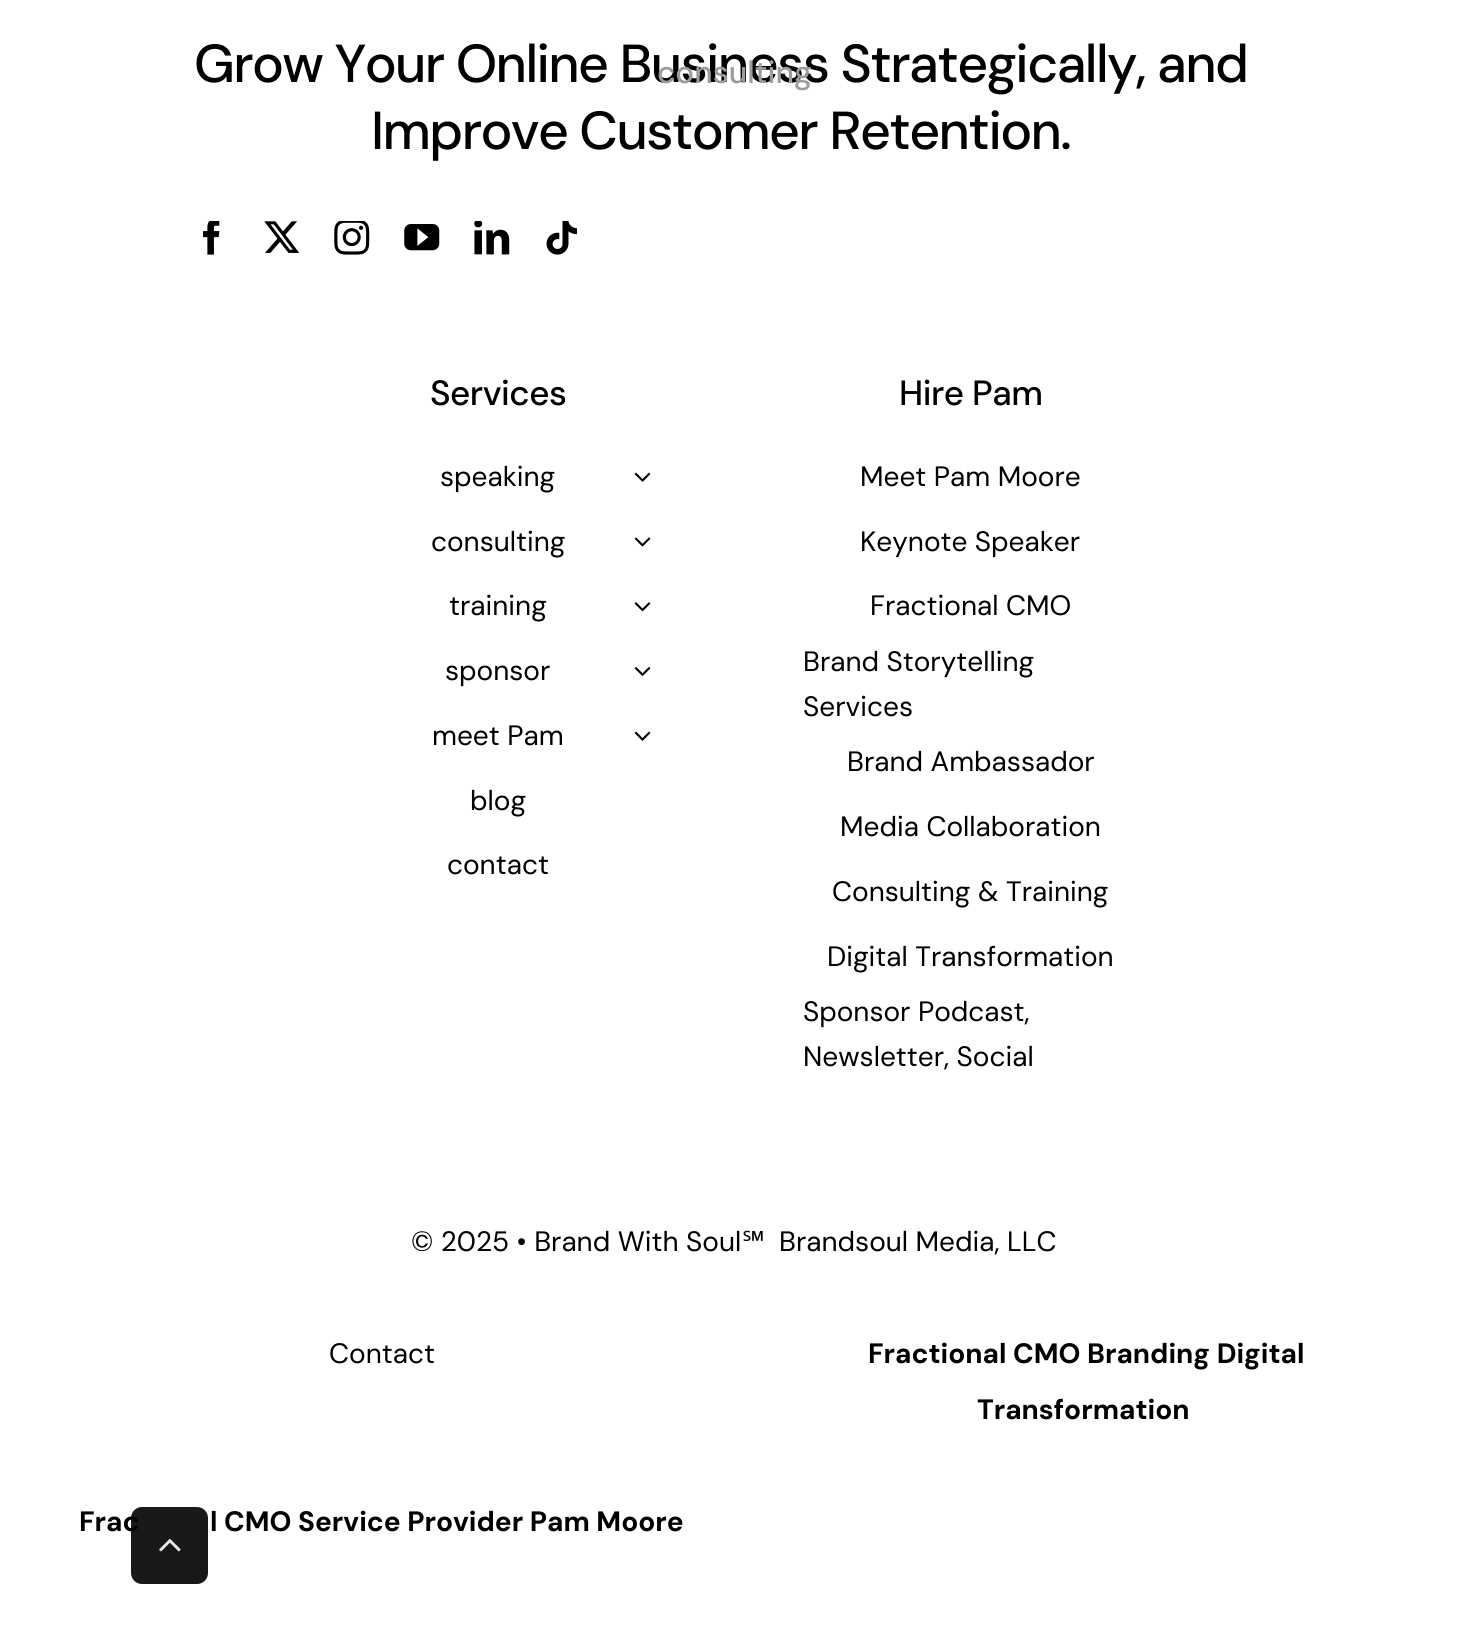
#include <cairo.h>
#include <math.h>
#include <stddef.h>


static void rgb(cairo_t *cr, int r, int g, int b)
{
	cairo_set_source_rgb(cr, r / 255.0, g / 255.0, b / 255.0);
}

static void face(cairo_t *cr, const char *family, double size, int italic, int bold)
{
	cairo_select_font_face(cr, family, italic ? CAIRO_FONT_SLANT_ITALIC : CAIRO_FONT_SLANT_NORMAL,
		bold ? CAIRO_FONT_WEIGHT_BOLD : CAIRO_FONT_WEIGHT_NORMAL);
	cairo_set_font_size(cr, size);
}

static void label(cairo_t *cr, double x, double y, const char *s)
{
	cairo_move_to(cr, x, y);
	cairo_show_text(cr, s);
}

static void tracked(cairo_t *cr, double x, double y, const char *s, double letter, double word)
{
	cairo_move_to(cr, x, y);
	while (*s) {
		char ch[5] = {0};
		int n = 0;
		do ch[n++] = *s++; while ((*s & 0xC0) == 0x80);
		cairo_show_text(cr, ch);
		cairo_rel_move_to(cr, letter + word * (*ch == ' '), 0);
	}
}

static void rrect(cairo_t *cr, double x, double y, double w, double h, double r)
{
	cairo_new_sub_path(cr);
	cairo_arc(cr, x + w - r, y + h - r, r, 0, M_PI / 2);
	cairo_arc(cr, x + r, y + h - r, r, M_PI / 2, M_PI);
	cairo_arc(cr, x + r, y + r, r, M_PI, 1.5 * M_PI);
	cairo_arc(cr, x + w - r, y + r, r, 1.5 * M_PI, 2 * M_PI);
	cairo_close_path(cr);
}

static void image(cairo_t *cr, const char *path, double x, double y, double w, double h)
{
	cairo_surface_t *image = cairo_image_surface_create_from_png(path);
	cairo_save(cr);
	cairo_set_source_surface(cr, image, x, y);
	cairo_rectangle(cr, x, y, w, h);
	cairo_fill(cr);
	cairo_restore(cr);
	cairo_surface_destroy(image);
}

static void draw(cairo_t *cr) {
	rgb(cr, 255, 255, 255);
	cairo_paint(cr);
	face(cr, "DM Sans Medium", 53.4, 0, 0);
	rgb(cr, 0, 0, 0);
	tracked(cr, 194, 82, "Grow Your Online Business Strategically, and", -1.6, 0);
	tracked(cr, 371, 149, "Improve Customer Retention.", -1.6, 0);
	image(cr, "image0.png", 203, 221, 17, 34);
	image(cr, "image1.png", 264, 221, 36, 32);
	image(cr, "image2.png", 334, 221, 36, 34);
	image(cr, "image3.png", 404, 224, 36, 27);
	image(cr, "image4.png", 474, 221, 36, 34);
	image(cr, "image5.png", 546, 221, 31, 34);
	face(cr, "DM Sans Medium", 35, 0, 0);
	tracked(cr, 430, 405, "Services", -0.5, 0);
	face(cr, "DM Sans", 28, 0, 0);
	label(cr, 440, 486, "speaking");
	image(cr, "image6.png", 634, 472, 17, 10);
	label(cr, 431, 551, "consulting");
	image(cr, "image7.png", 634, 537, 17, 10);
	label(cr, 449, 615, "training");
	image(cr, "image8.png", 634, 602, 17, 10);
	label(cr, 445, 680, "sponsor");
	image(cr, "image9.png", 634, 667, 17, 9);
	label(cr, 432, 745, "meet Pam");
	image(cr, "image6.png", 634, 731, 17, 10);
	label(cr, 470, 810, "blog");
	label(cr, 447, 874, "contact");
	face(cr, "DM Sans Medium", 35, 0, 0);
	tracked(cr, 899, 405, "Hire Pam", -0.5, 0);
	face(cr, "DM Sans", 28, 0, 0);
	label(cr, 860, 486, "Meet Pam Moore");
	label(cr, 860, 551, "Keynote Speaker");
	label(cr, 870, 615, "Fractional CMO");
	label(cr, 803, 671, "Brand Storytelling");
	label(cr, 803, 716, "Services");
	label(cr, 847, 771, "Brand Ambassador");
	label(cr, 840, 836, "Media Collaboration");
	label(cr, 832, 901, "Consulting & Training");
	label(cr, 827, 966, "Digital Transformation");
	label(cr, 803, 1021, "Sponsor Podcast,");
	label(cr, 803, 1066, "Newsletter, Social");
	label(cr, 411, 1251, "© 2025 • Brand With Soul");
	face(cr, "Noto Sans", 28, 0, 0);
	label(cr, 742, 1251, "℠");
	face(cr, "DM Sans", 28, 0, 0);
	label(cr, 779, 1251, "Brandsoul Media, LLC");
	label(cr, 329, 1363, "Contact");
	face(cr, "DM Sans", 28, 0, 1);
	label(cr, 868, 1363, "Fractional CMO Branding Digital");
	label(cr, 977, 1419, "Transformation");
	label(cr, 79, 1531, "Frac");
	label(cr, 210, 1531, "l CMO Service Provider Pam Moore");
	face(cr, "DM Sans Medium", 31.5, 0, 0);
	rgb(cr, 156, 156, 156);
	label(cr, 657, 83, "consulting");
	cairo_set_source_rgba(cr, 0, 0, 0, 0.9);
	rrect(cr, 131, 1507, 77, 77, 11);
	cairo_fill(cr);
	image(cr, "image10.png", 159, 1539, 22, 13);
}

int main(void) {
	cairo_surface_t *surface = cairo_image_surface_create(CAIRO_FORMAT_RGB24, 1468, 1635);
	cairo_t *cr = cairo_create(surface);
	cairo_font_options_t *options = cairo_font_options_create();
	cairo_font_options_set_hint_metrics(options, CAIRO_HINT_METRICS_OFF);
	cairo_font_options_set_hint_style(options, CAIRO_HINT_STYLE_NONE);
	cairo_set_font_options(cr, options);
	cairo_set_miter_limit(cr, 4);
	draw(cr);
	cairo_surface_write_to_png(surface, "render.png");
	cairo_font_options_destroy(options);
	cairo_destroy(cr);
	cairo_surface_destroy(surface);
	return 0;
}
